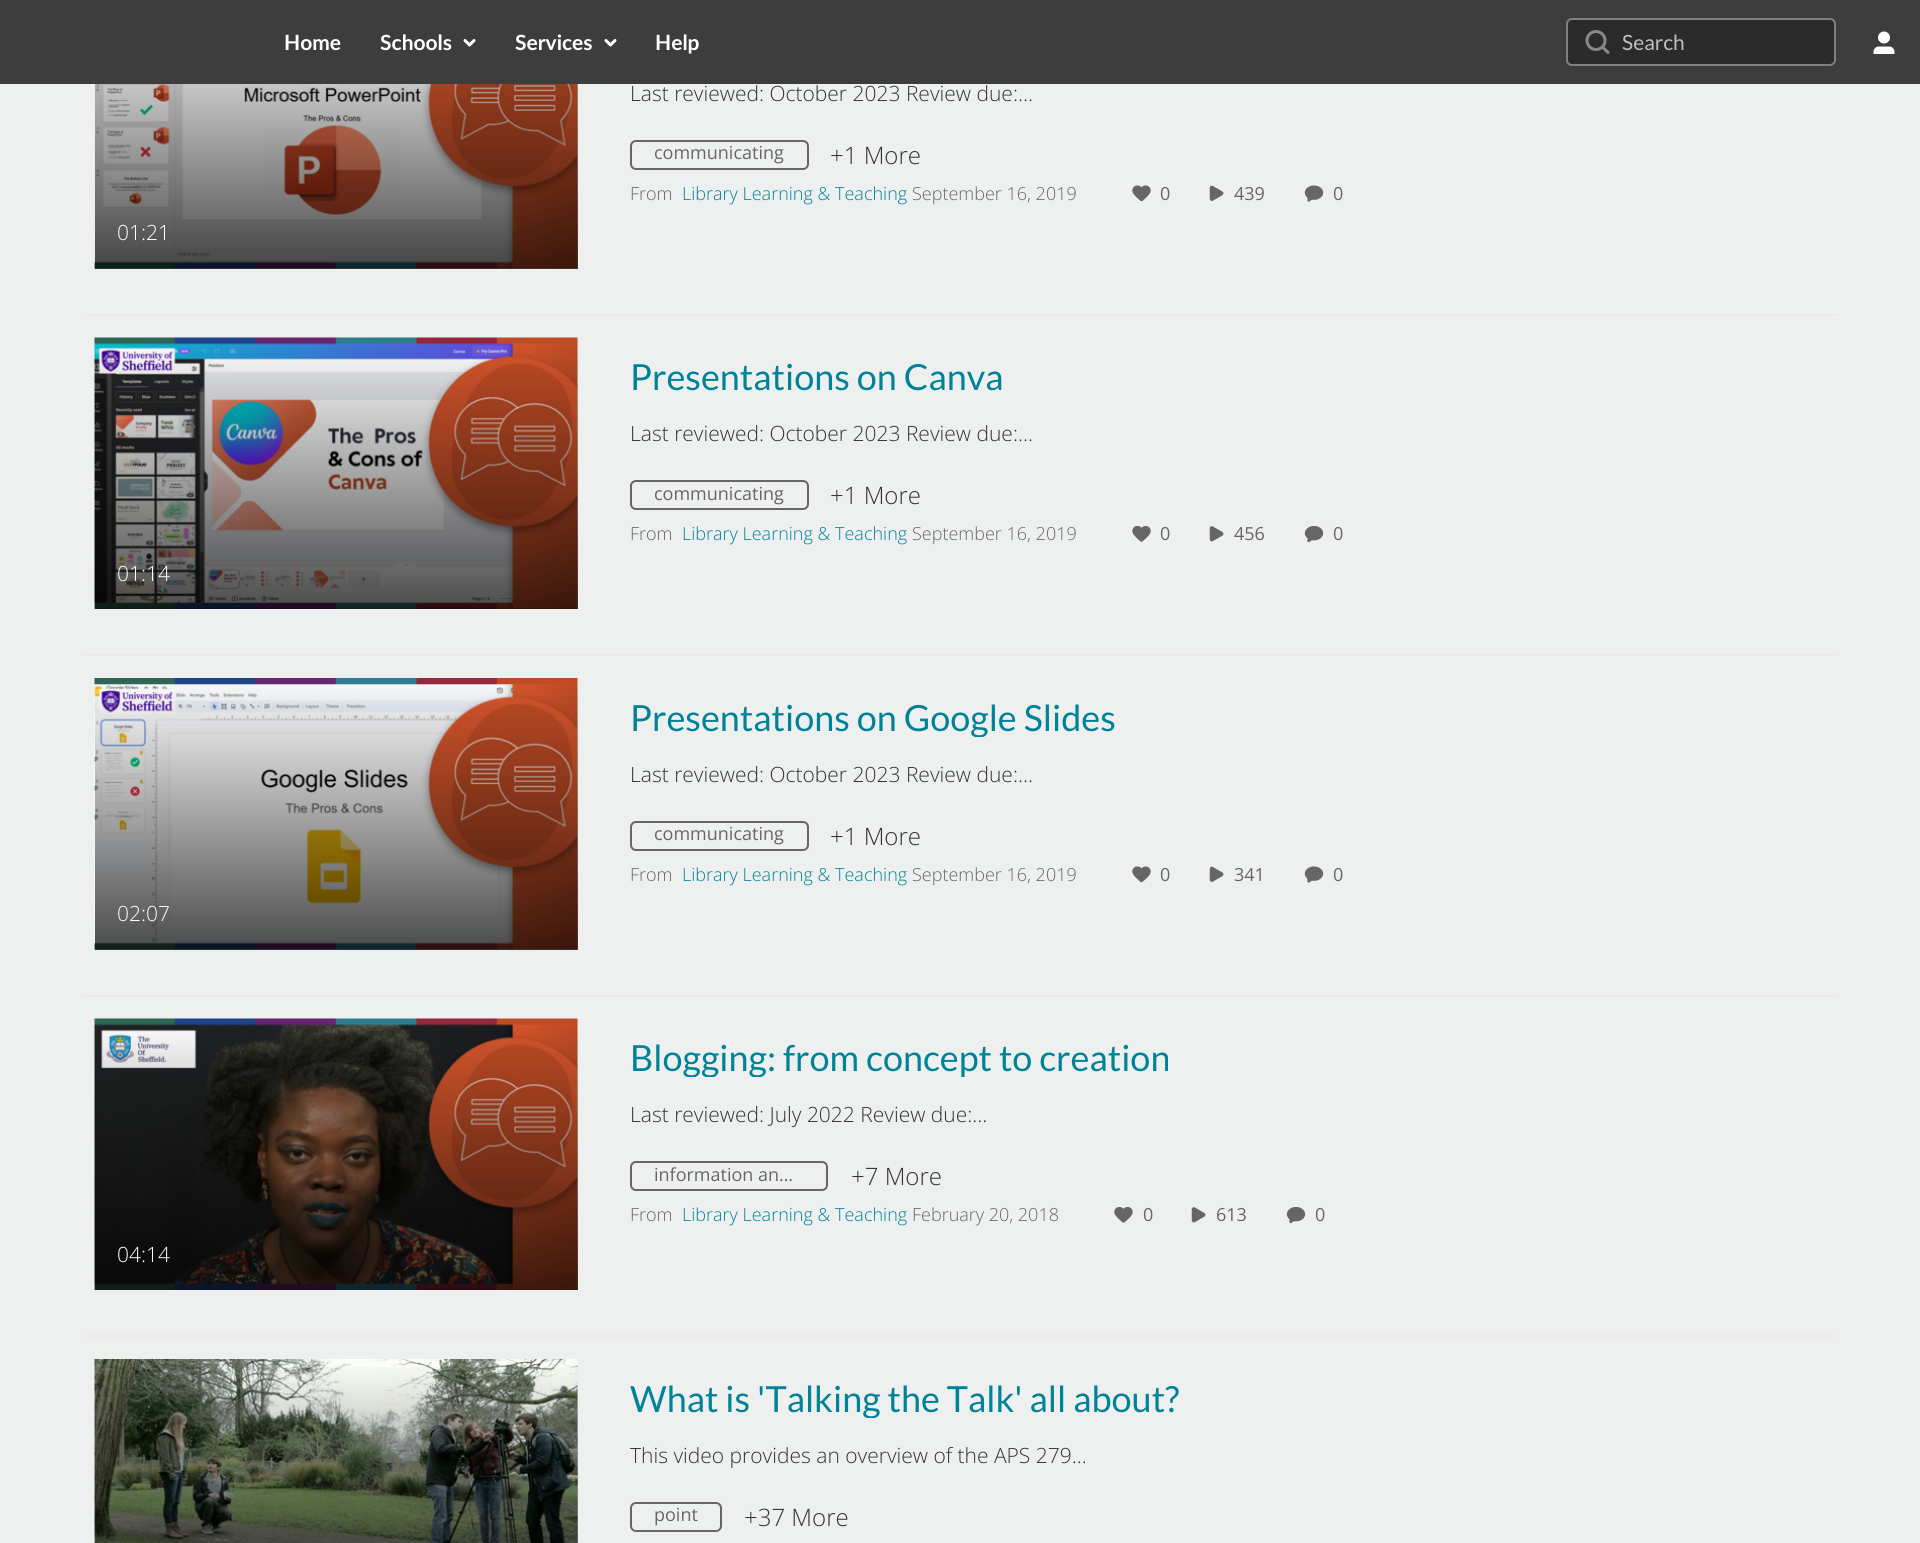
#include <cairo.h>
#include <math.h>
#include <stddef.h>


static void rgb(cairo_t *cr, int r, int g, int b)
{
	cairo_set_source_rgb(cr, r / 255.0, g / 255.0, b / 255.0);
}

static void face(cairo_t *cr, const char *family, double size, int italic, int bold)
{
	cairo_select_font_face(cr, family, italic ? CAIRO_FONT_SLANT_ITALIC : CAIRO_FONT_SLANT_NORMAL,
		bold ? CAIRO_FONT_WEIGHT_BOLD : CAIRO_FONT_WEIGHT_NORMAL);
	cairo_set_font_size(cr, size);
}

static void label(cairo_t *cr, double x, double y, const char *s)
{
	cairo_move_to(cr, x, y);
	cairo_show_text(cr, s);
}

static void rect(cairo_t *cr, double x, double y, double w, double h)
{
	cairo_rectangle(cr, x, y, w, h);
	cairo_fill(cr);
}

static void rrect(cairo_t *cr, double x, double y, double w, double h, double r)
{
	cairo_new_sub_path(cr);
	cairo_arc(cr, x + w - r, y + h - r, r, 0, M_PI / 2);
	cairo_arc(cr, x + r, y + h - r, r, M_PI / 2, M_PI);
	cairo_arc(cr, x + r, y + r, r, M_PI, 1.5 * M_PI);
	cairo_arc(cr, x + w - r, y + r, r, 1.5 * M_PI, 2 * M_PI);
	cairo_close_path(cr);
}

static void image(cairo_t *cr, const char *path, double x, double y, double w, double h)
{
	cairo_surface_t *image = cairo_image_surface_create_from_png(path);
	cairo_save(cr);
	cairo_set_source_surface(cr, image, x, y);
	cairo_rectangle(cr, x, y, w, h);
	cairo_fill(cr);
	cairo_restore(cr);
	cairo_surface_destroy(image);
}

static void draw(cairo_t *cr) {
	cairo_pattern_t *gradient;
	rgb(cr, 238, 240, 240);
	cairo_paint(cr);
	rgb(cr, 61, 61, 61);
	rect(cr, 0, 0, 1920, 84);
	face(cr, "Lato", 21, 0, 1);
	rgb(cr, 255, 255, 255);
	label(cr, 284, 50, "Home");
	label(cr, 380, 50, "Schools");
	image(cr, "image0.png", 463, 39, 13, 8);
	label(cr, 515, 50, "Services");
	image(cr, "image0.png", 604, 39, 13, 8);
	label(cr, 655, 50, "Help");
	rgb(cr, 43, 43, 43);
	rrect(cr, 1566, 18, 270, 48, 6);
	cairo_fill(cr);
	rrect(cr, 1567, 19, 268, 46, 5);
	cairo_set_source_rgba(cr, 1, 1, 1, 0.4);
	cairo_stroke(cr);
	image(cr, "image1.png", 1585, 30, 25, 24);
	cairo_set_source_rgba(cr, 0, 0, 0, 0.07);
	cairo_new_path(cr);
	cairo_move_to(cr, 1622, 28);
	cairo_line_to(cr, 1828, 28);
	cairo_curve_to(cr, 1832, 28, 1834, 31, 1834, 34);
	cairo_line_to(cr, 1834, 52);
	cairo_line_to(cr, 1833, 55);
	cairo_curve_to(cr, 1834, 54, 1835, 53, 1835, 51);
	cairo_line_to(cr, 1835, 33);
	cairo_curve_to(cr, 1835, 30, 1832, 27, 1829, 27);
	cairo_line_to(cr, 1622, 27);
	cairo_curve_to(cr, 1619, 27, 1616, 30, 1616, 33);
	cairo_line_to(cr, 1616, 34);
	cairo_curve_to(cr, 1616, 31, 1618, 28, 1622, 28);
	cairo_close_path(cr);
	cairo_fill(cr);
	face(cr, "Lato", 21, 0, 0);
	rgb(cr, 191, 191, 191);
	label(cr, 1622, 50, "Search");
	image(cr, "image2.png", 1873, 31, 22, 23);
	face(cr, "Open Sans Light", 21, 0, 0);
	rgb(cr, 51, 51, 51);
	label(cr, 630, 101, "Last reviewed: October 2023 Review due:…");
	rrect(cr, 631, 141, 177, 28, 5);
	rgb(cr, 102, 102, 102);
	cairo_stroke(cr);
	face(cr, "Open Sans", 18, 0, 0);
	label(cr, 654, 159, "communicating");
	face(cr, "Open Sans Light", 24, 0, 0);
	rgb(cr, 51, 51, 51);
	label(cr, 830, 164, "+1 More");
	face(cr, "Open Sans Light", 18, 0, 0);
	rgb(cr, 102, 102, 102);
	label(cr, 630, 200, "From");
	rgb(cr, 0, 130, 151);
	label(cr, 682, 200, "Library Learning & Teaching");
	rgb(cr, 102, 102, 102);
	label(cr, 912, 200, "September 16, 2019");
	image(cr, "image3.png", 1132, 185, 19, 17);
	face(cr, "Open Sans", 18, 0, 0);
	label(cr, 1160, 200, "0");
	image(cr, "image4.png", 1209, 185, 15, 16);
	label(cr, 1234, 200, "439");
	image(cr, "image5.png", 1304, 185, 20, 17);
	label(cr, 1333, 200, "0");
	image(cr, "image6.png", 94, 84, 484, 185);
	gradient = cairo_pattern_create_linear(336, -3, 336, 269);
	cairo_pattern_add_color_stop_rgba(gradient, 0, 0, 0, 0, 0);
	cairo_pattern_add_color_stop_rgba(gradient, 1, 0, 0, 0, 0.7);
	cairo_set_source(cr, gradient);
	cairo_pattern_destroy(gradient);
	rect(cr, 95, 84, 483, 185);
	face(cr, "Open Sans Light", 21, 0, 0);
	rgb(cr, 255, 255, 255);
	label(cr, 117, 240, "01:21");
	rgb(cr, 235, 235, 235);
	rect(cr, 83, 314, 1755, 2);
	face(cr, "Lato", 36, 0, 0);
	rgb(cr, 0, 130, 151);
	label(cr, 630, 390, "Presentations on Canva");
	face(cr, "Open Sans Light", 21, 0, 0);
	rgb(cr, 51, 51, 51);
	label(cr, 630, 441, "Last reviewed: October 2023 Review due:…");
	rrect(cr, 631, 481, 177, 28, 5);
	rgb(cr, 102, 102, 102);
	cairo_stroke(cr);
	face(cr, "Open Sans", 18, 0, 0);
	label(cr, 654, 500, "communicating");
	face(cr, "Open Sans Light", 24, 0, 0);
	rgb(cr, 51, 51, 51);
	label(cr, 830, 504, "+1 More");
	face(cr, "Open Sans Light", 18, 0, 0);
	rgb(cr, 102, 102, 102);
	label(cr, 630, 540, "From");
	rgb(cr, 0, 130, 151);
	label(cr, 682, 540, "Library Learning & Teaching");
	rgb(cr, 102, 102, 102);
	label(cr, 912, 540, "September 16, 2019");
	image(cr, "image7.png", 1132, 525, 19, 17);
	face(cr, "Open Sans", 18, 0, 0);
	label(cr, 1160, 540, "0");
	image(cr, "image8.png", 1209, 526, 15, 16);
	label(cr, 1234, 540, "456");
	image(cr, "image9.png", 1304, 526, 20, 17);
	label(cr, 1333, 540, "0");
	image(cr, "image10.png", 94, 337, 484, 272);
	gradient = cairo_pattern_create_linear(336, 338, 336, 609);
	cairo_pattern_add_color_stop_rgba(gradient, 0, 0, 0, 0, 0);
	cairo_pattern_add_color_stop_rgba(gradient, 1, 0, 0, 0, 0.7);
	cairo_set_source(cr, gradient);
	cairo_pattern_destroy(gradient);
	rect(cr, 95, 346, 483, 263);
	face(cr, "Open Sans Light", 21, 0, 0);
	rgb(cr, 255, 255, 255);
	label(cr, 117, 581, "01:14");
	rgb(cr, 235, 235, 235);
	rect(cr, 83, 654, 1755, 2);
	cairo_save(cr);
	cairo_rectangle(cr, 630, 696, 486, 41);
	cairo_clip(cr);
	face(cr, "Lato", 36, 0, 0);
	rgb(cr, 0, 130, 151);
	label(cr, 630, 731, "Presentations on Google Slides");
	cairo_restore(cr);
	rgb(cr, 51, 51, 51);
	label(cr, 630, 782, "Last reviewed: October 2023 Review due:…");
	rrect(cr, 631, 822, 177, 28, 5);
	rgb(cr, 102, 102, 102);
	cairo_stroke(cr);
	face(cr, "Open Sans", 18, 0, 0);
	label(cr, 654, 840, "communicating");
	face(cr, "Open Sans Light", 24, 0, 0);
	rgb(cr, 51, 51, 51);
	label(cr, 830, 845, "+1 More");
	face(cr, "Open Sans Light", 18, 0, 0);
	rgb(cr, 102, 102, 102);
	label(cr, 630, 881, "From");
	rgb(cr, 0, 130, 151);
	label(cr, 682, 881, "Library Learning & Teaching");
	rgb(cr, 102, 102, 102);
	label(cr, 912, 881, "September 16, 2019");
	image(cr, "image3.png", 1132, 866, 19, 17);
	face(cr, "Open Sans", 18, 0, 0);
	label(cr, 1160, 881, "0");
	image(cr, "image4.png", 1209, 866, 15, 16);
	label(cr, 1234, 881, "341");
	image(cr, "image5.png", 1304, 866, 20, 17);
	label(cr, 1333, 881, "0");
	image(cr, "image11.png", 94, 678, 484, 272);
	gradient = cairo_pattern_create_linear(336, 678, 336, 950);
	cairo_pattern_add_color_stop_rgba(gradient, 0, 0, 0, 0, 0);
	cairo_pattern_add_color_stop_rgba(gradient, 1, 0, 0, 0, 0.7);
	cairo_set_source(cr, gradient);
	cairo_pattern_destroy(gradient);
	rect(cr, 95, 686, 483, 264);
	face(cr, "Open Sans Light", 21, 0, 0);
	rgb(cr, 255, 255, 255);
	label(cr, 117, 921, "02:07");
	rgb(cr, 235, 235, 235);
	rect(cr, 83, 995, 1755, 2);
	cairo_save(cr);
	cairo_rectangle(cr, 630, 1037, 540, 40);
	cairo_clip(cr);
	face(cr, "Lato", 36, 0, 0);
	rgb(cr, 0, 130, 151);
	label(cr, 630, 1071, "Blogging: from concept to creation");
	cairo_restore(cr);
	rgb(cr, 51, 51, 51);
	label(cr, 630, 1122, "Last reviewed: July 2022 Review due:…");
	rrect(cr, 631, 1162, 196, 28, 5);
	rgb(cr, 102, 102, 102);
	cairo_stroke(cr);
	face(cr, "Open Sans", 18, 0, 0);
	label(cr, 654, 1181, "information an…");
	face(cr, "Open Sans Light", 24, 0, 0);
	rgb(cr, 51, 51, 51);
	label(cr, 851, 1185, "+7 More");
	face(cr, "Open Sans Light", 18, 0, 0);
	rgb(cr, 102, 102, 102);
	label(cr, 630, 1221, "From");
	rgb(cr, 0, 130, 151);
	label(cr, 682, 1221, "Library Learning & Teaching");
	rgb(cr, 102, 102, 102);
	label(cr, 912, 1221, "February 20, 2018");
	image(cr, "image7.png", 1114, 1206, 19, 17);
	face(cr, "Open Sans", 18, 0, 0);
	label(cr, 1143, 1221, "0");
	image(cr, "image8.png", 1191, 1207, 15, 16);
	label(cr, 1216, 1221, "613");
	image(cr, "image9.png", 1286, 1207, 20, 17);
	label(cr, 1315, 1221, "0");
	image(cr, "image12.png", 94, 1018, 484, 272);
	gradient = cairo_pattern_create_linear(336, 1019, 336, 1290);
	cairo_pattern_add_color_stop_rgba(gradient, 0, 0, 0, 0, 0);
	cairo_pattern_add_color_stop_rgba(gradient, 1, 0, 0, 0, 0.7);
	cairo_set_source(cr, gradient);
	cairo_pattern_destroy(gradient);
	rect(cr, 95, 1027, 483, 263);
	face(cr, "Open Sans Light", 21, 0, 0);
	rgb(cr, 255, 255, 255);
	label(cr, 117, 1262, "04:14");
	image(cr, "image13.png", 94, 1359, 484, 184);
	gradient = cairo_pattern_create_linear(336, 1359, 336, 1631);
	cairo_pattern_add_color_stop_rgba(gradient, 0, 0, 0, 0, 0);
	cairo_pattern_add_color_stop_rgba(gradient, 1, 0, 0, 0, 0.7);
	cairo_set_source(cr, gradient);
	cairo_pattern_destroy(gradient);
	rect(cr, 95, 1367, 483, 176);
	rgb(cr, 235, 235, 235);
	rect(cr, 83, 1335, 1755, 2);
	cairo_save(cr);
	cairo_rectangle(cr, 630, 1377, 549, 41);
	cairo_clip(cr);
	face(cr, "Lato", 36, 0, 0);
	rgb(cr, 0, 130, 151);
	label(cr, 630, 1412, "What is 'Talking the Talk' all about?");
	cairo_restore(cr);
	rgb(cr, 51, 51, 51);
	label(cr, 630, 1463, "This video provides an overview of the APS 279…");
	rrect(cr, 631, 1503, 90, 28, 5);
	rgb(cr, 102, 102, 102);
	cairo_stroke(cr);
	face(cr, "Open Sans", 18, 0, 0);
	label(cr, 654, 1521, "point");
	face(cr, "Open Sans Light", 24, 0, 0);
	rgb(cr, 51, 51, 51);
	label(cr, 744, 1526, "+37 More");
}

int main(void) {
	cairo_surface_t *surface = cairo_image_surface_create(CAIRO_FORMAT_RGB24, 1920, 1543);
	cairo_t *cr = cairo_create(surface);
	cairo_font_options_t *options = cairo_font_options_create();
	cairo_font_options_set_hint_metrics(options, CAIRO_HINT_METRICS_OFF);
	cairo_font_options_set_hint_style(options, CAIRO_HINT_STYLE_NONE);
	cairo_set_font_options(cr, options);
	cairo_set_miter_limit(cr, 4);
	draw(cr);
	cairo_surface_write_to_png(surface, "render.png");
	cairo_font_options_destroy(options);
	cairo_destroy(cr);
	cairo_surface_destroy(surface);
	return 0;
}
